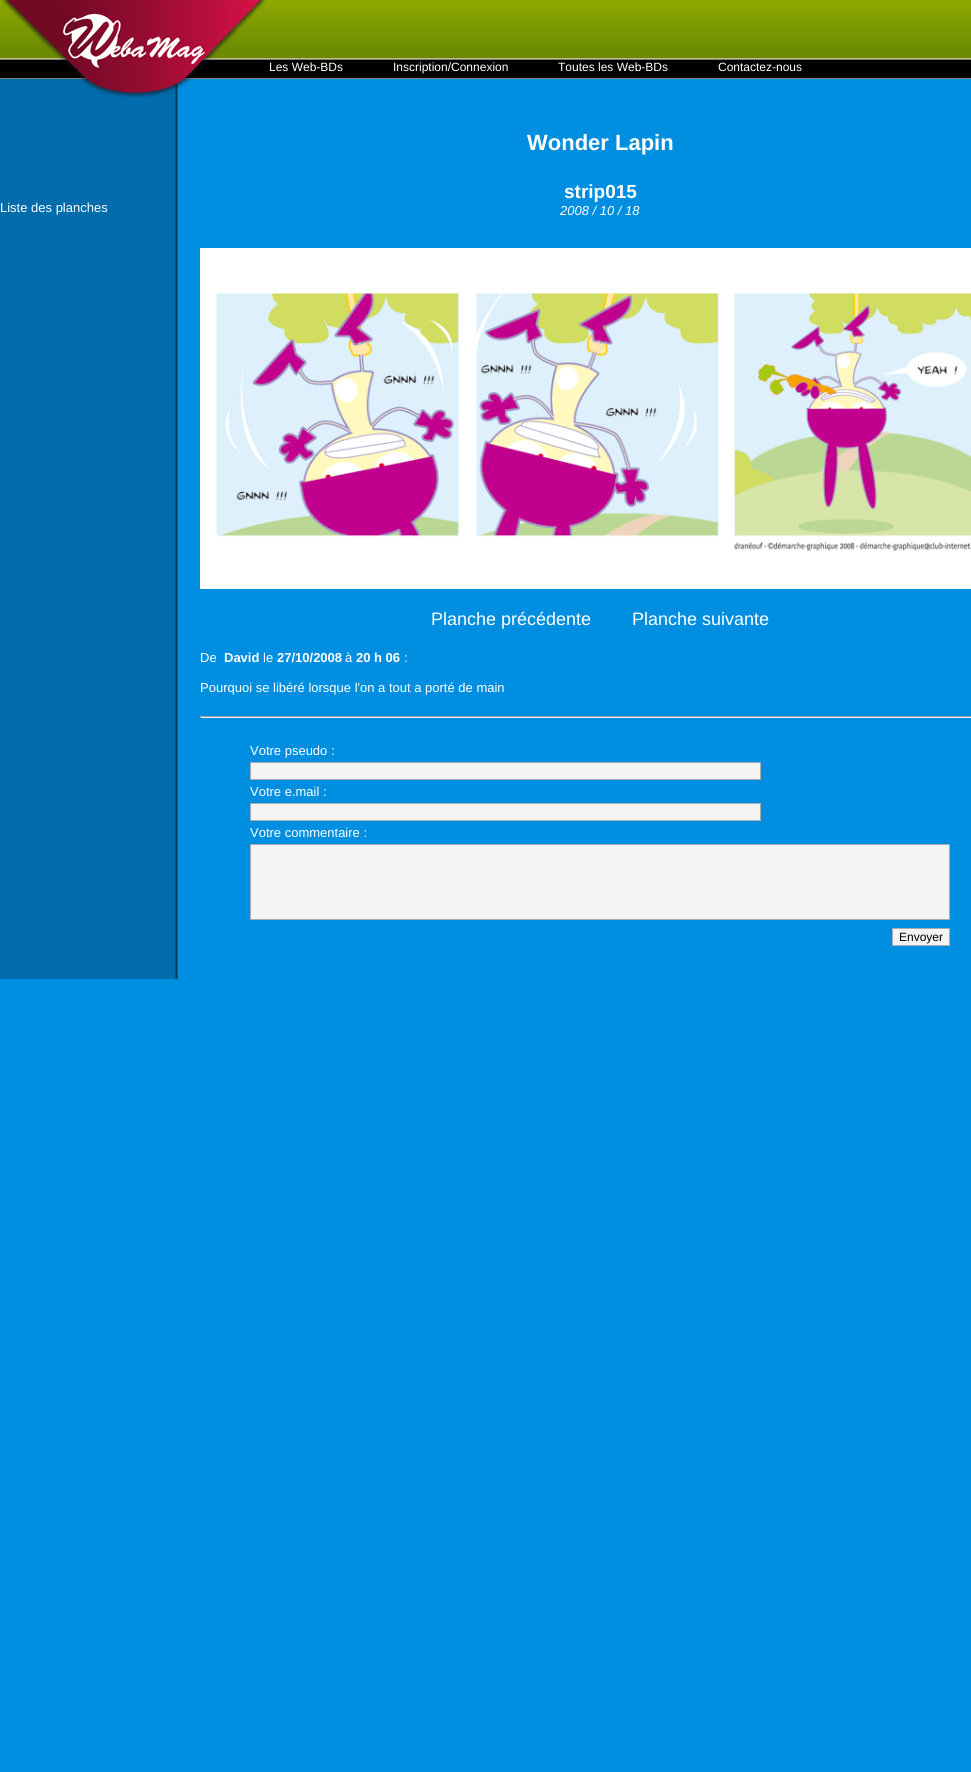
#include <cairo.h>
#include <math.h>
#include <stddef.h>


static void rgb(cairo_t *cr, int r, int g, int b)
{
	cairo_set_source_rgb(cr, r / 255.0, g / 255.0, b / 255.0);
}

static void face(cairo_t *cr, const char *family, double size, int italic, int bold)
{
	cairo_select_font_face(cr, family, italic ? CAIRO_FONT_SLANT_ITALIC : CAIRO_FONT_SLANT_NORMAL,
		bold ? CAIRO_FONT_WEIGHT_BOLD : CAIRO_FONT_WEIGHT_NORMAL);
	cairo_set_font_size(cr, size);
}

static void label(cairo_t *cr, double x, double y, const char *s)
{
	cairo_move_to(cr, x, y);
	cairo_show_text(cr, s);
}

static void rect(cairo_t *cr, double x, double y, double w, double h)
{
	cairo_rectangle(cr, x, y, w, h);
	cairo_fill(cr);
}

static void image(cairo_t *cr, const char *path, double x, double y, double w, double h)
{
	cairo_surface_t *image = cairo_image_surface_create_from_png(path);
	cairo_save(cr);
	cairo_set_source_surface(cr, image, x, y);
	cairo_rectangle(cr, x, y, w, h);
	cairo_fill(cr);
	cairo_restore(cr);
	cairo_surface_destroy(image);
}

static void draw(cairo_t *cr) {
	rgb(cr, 0, 142, 224);
	cairo_paint(cr);
	image(cr, "image0.png", 0, 79, 178, 900);
	image(cr, "image1.png", 0, 0, 971, 79);
	image(cr, "image2.png", 1, 0, 266, 98);
	face(cr, "Liberation Sans", 12, 0, 0);
	rgb(cr, 255, 255, 255);
	label(cr, 269, 71, "Les Web-BDs");
	label(cr, 393, 71, "Inscription/Connexion");
	label(cr, 558, 71, "Toutes les Web-BDs");
	label(cr, 718, 71, "Contactez-nous");
	face(cr, "Liberation Sans", 13, 0, 0);
	label(cr, 0, 212, "Liste des planches");
	face(cr, "Liberation Sans", 22, 0, 1);
	label(cr, 527, 150, "Wonder Lapin");
	face(cr, "Liberation Sans", 19, 0, 1);
	label(cr, 564, 198, "strip015");
	face(cr, "Liberation Sans", 13, 1, 0);
	label(cr, 560, 215, "2008 / 10 / 18");
	image(cr, "image3.png", 200, 248, 771, 341);
	face(cr, "Liberation Sans", 18, 0, 0);
	label(cr, 431, 625, "Planche précédente");
	label(cr, 632, 625, "Planche suivante");
	face(cr, "Liberation Sans", 13, 0, 0);
	label(cr, 200, 662, "De");
	face(cr, "Liberation Sans", 13, 0, 1);
	label(cr, 224, 662, "David");
	face(cr, "Liberation Sans", 13, 0, 0);
	label(cr, 263, 662, "le");
	face(cr, "Liberation Sans", 13, 0, 1);
	label(cr, 277, 662, "27/10/2008");
	face(cr, "Liberation Sans", 13, 0, 0);
	label(cr, 345, 662, "à");
	face(cr, "Liberation Sans", 13, 0, 1);
	label(cr, 356, 662, "20 h 06");
	face(cr, "Liberation Sans", 13, 0, 0);
	label(cr, 404, 662, ":");
	label(cr, 200, 692, "Pourquoi se libéré lorsque l'on a tout a porté de main");
	rgb(cr, 159, 159, 159);
	rect(cr, 200, 716, 771, 1);
	rgb(cr, 238, 238, 238);
	rect(cr, 200, 717, 771, 1);
	rgb(cr, 159, 159, 159);
	rect(cr, 200, 716, 1, 2);
	rgb(cr, 255, 255, 255);
	label(cr, 250, 755, "Votre pseudo :");
	rgb(cr, 244, 244, 244);
	cairo_rectangle(cr, 250.5, 762.5, 510, 17);
	cairo_fill_preserve(cr);
	rgb(cr, 165, 172, 178);
	cairo_set_line_width(cr, 1);
	cairo_stroke(cr);
	rgb(cr, 255, 255, 255);
	label(cr, 250, 796, "Votre e.mail :");
	rgb(cr, 244, 244, 244);
	cairo_rectangle(cr, 250.5, 803.5, 510, 17);
	cairo_fill_preserve(cr);
	rgb(cr, 165, 172, 178);
	cairo_stroke(cr);
	rgb(cr, 255, 255, 255);
	label(cr, 250, 837, "Votre commentaire :");
	rgb(cr, 244, 244, 244);
	cairo_rectangle(cr, 250.5, 844.5, 699, 75);
	cairo_fill_preserve(cr);
	rgb(cr, 165, 172, 178);
	cairo_stroke(cr);
	rgb(cr, 244, 244, 244);
	cairo_rectangle(cr, 892.5, 928.5, 57, 17);
	cairo_fill_preserve(cr);
	rgb(cr, 165, 172, 178);
	cairo_stroke(cr);
	face(cr, "Liberation Sans", 12, 0, 0);
	rgb(cr, 0, 0, 0);
	label(cr, 899, 941, "Envoyer");
}

int main(void) {
	cairo_surface_t *surface = cairo_image_surface_create(CAIRO_FORMAT_RGB24, 971, 1772);
	cairo_t *cr = cairo_create(surface);
	cairo_font_options_t *options = cairo_font_options_create();
	cairo_font_options_set_hint_metrics(options, CAIRO_HINT_METRICS_OFF);
	cairo_font_options_set_hint_style(options, CAIRO_HINT_STYLE_NONE);
	cairo_set_font_options(cr, options);
	cairo_set_miter_limit(cr, 4);
	draw(cr);
	cairo_surface_write_to_png(surface, "render.png");
	cairo_font_options_destroy(options);
	cairo_destroy(cr);
	cairo_surface_destroy(surface);
	return 0;
}
